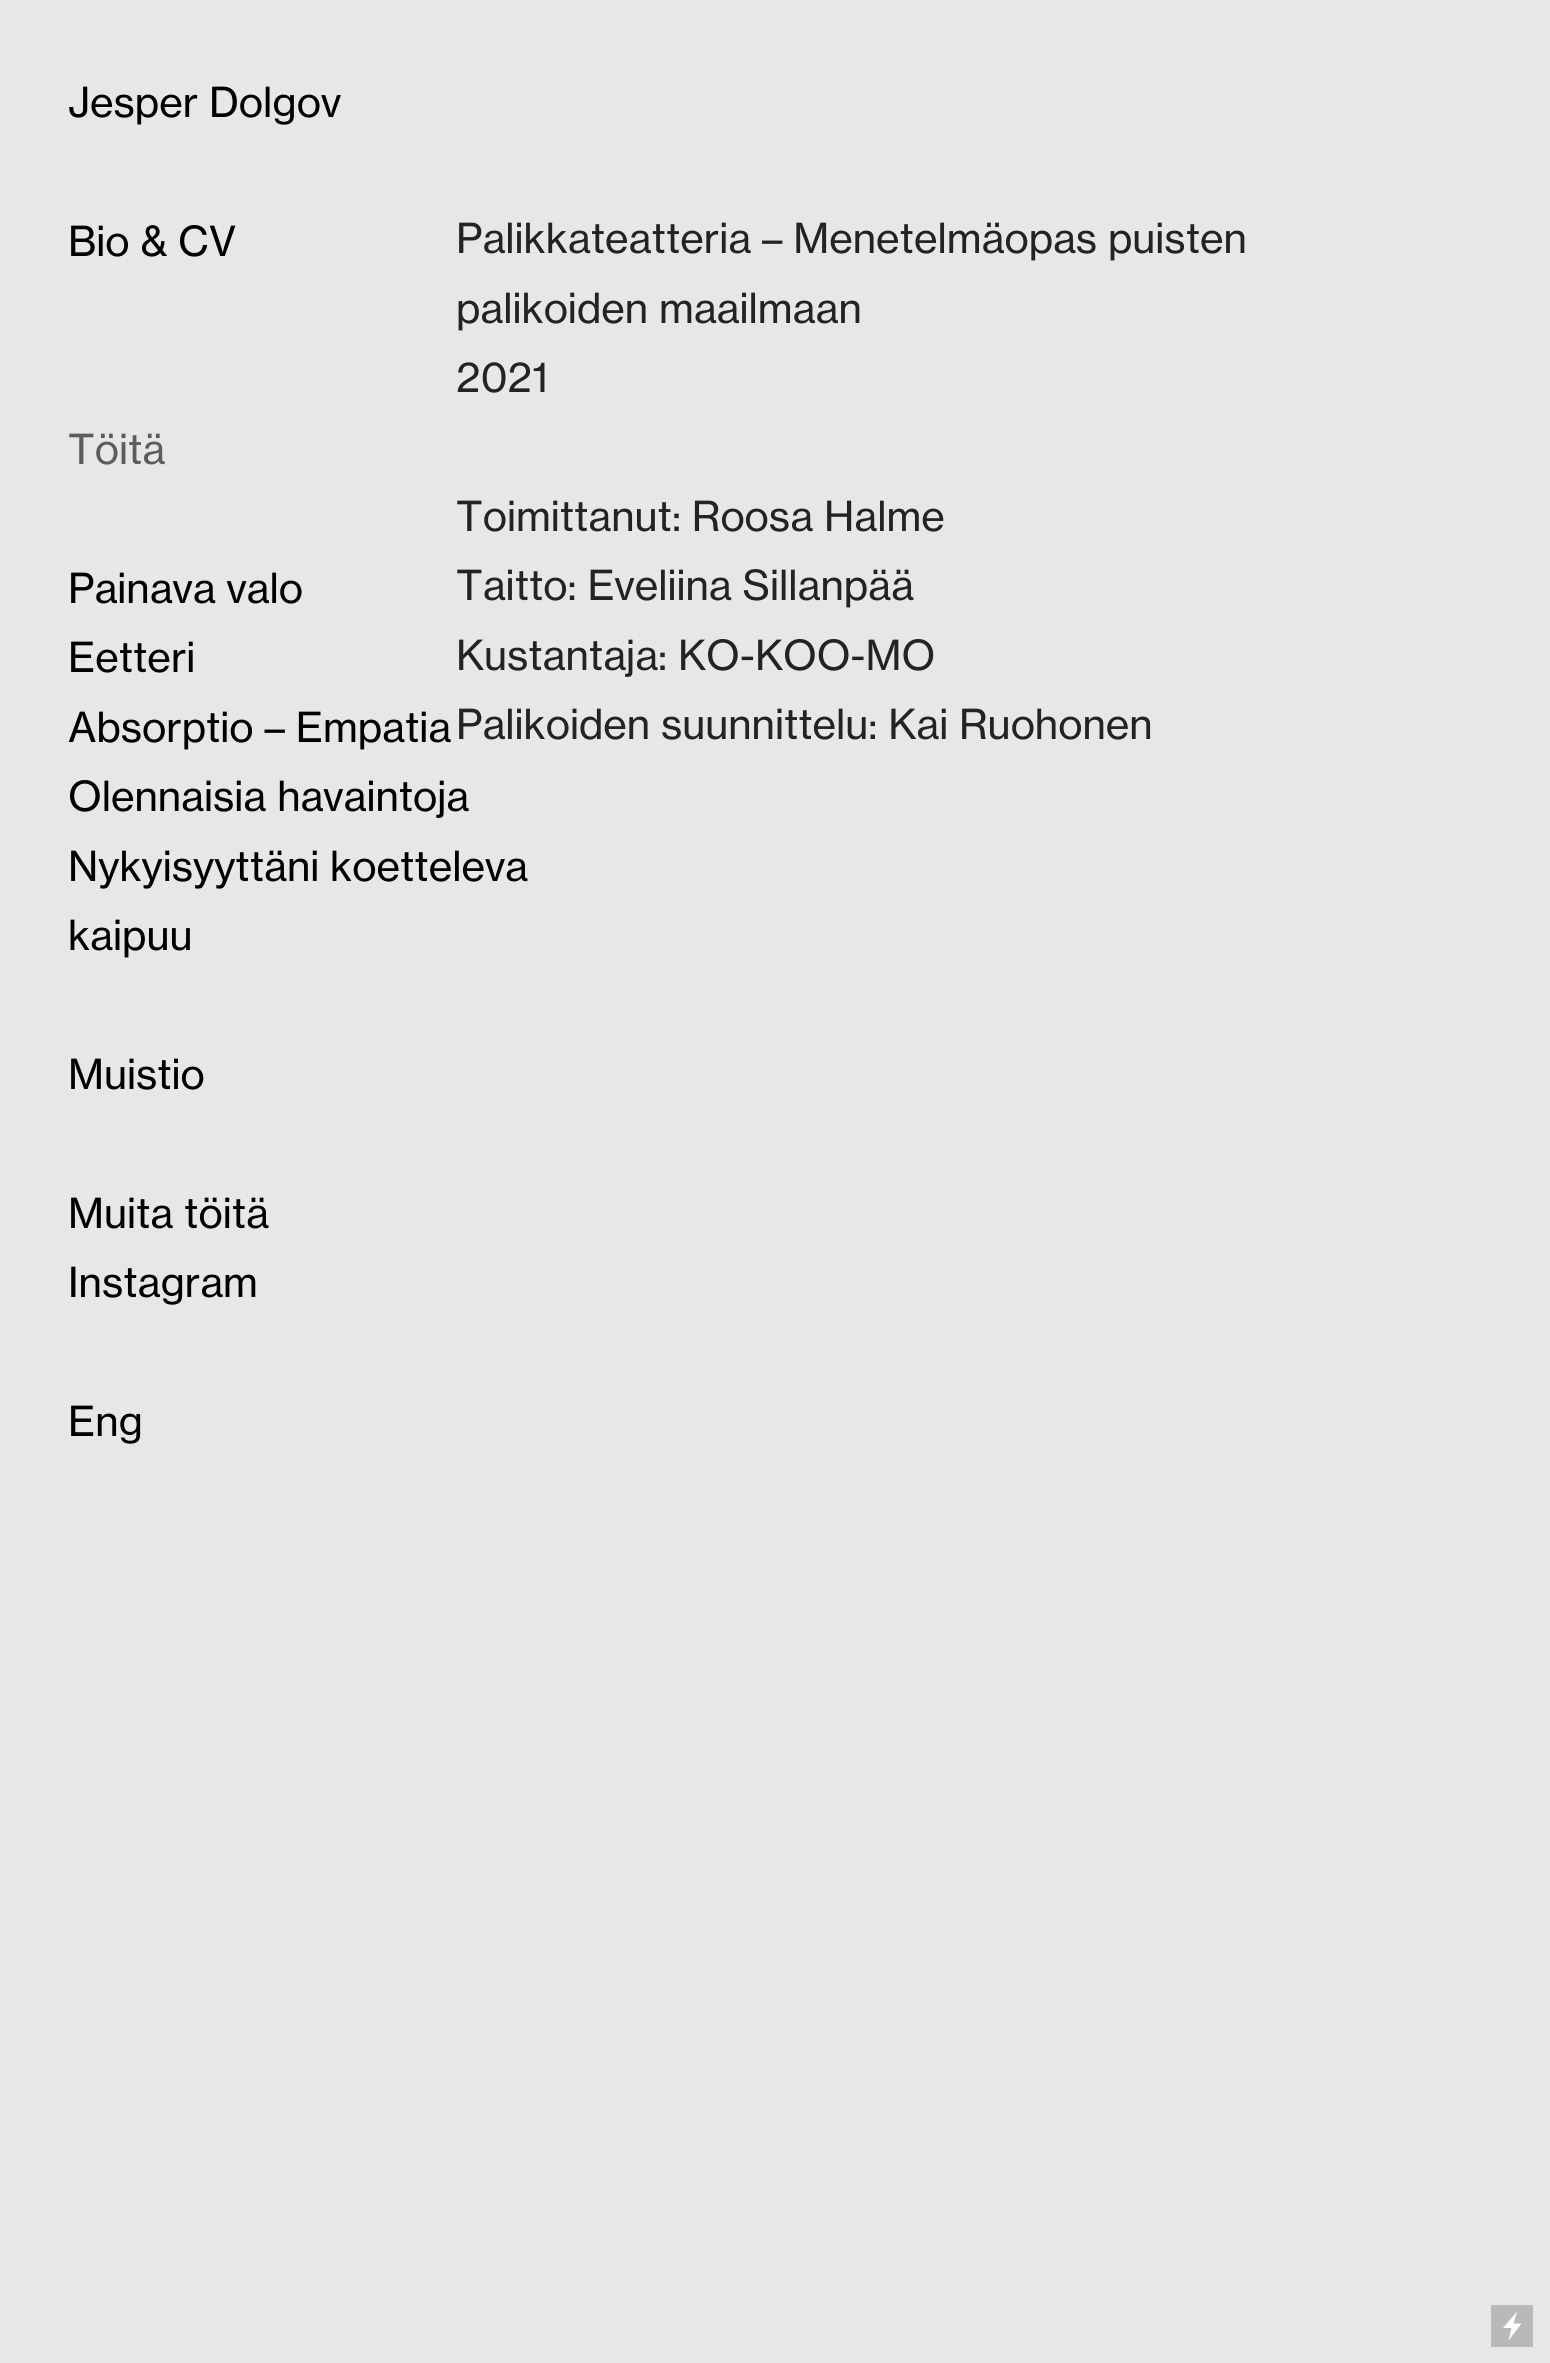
#include <cairo.h>
#include <math.h>
#include <stddef.h>


static void rgb(cairo_t *cr, int r, int g, int b)
{
	cairo_set_source_rgb(cr, r / 255.0, g / 255.0, b / 255.0);
}

static void face(cairo_t *cr, const char *family, double size, int italic, int bold)
{
	cairo_select_font_face(cr, family, italic ? CAIRO_FONT_SLANT_ITALIC : CAIRO_FONT_SLANT_NORMAL,
		bold ? CAIRO_FONT_WEIGHT_BOLD : CAIRO_FONT_WEIGHT_NORMAL);
	cairo_set_font_size(cr, size);
}

static void label(cairo_t *cr, double x, double y, const char *s)
{
	cairo_move_to(cr, x, y);
	cairo_show_text(cr, s);
}

static void rect(cairo_t *cr, double x, double y, double w, double h)
{
	cairo_rectangle(cr, x, y, w, h);
	cairo_fill(cr);
}

static void draw(cairo_t *cr) {
	rgb(cr, 231, 231, 231);
	cairo_paint(cr);
	face(cr, "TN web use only", 40.8, 0, 0);
	rgb(cr, 0, 0, 0);
	label(cr, 68, 117, "Jesper Dolgov");
	label(cr, 68, 256, "Bio & CV");
	rgb(cr, 92, 92, 92);
	label(cr, 68, 464, "Töitä");
	rgb(cr, 0, 0, 0);
	label(cr, 68, 603, "Painava valo");
	label(cr, 68, 672, "Eetteri");
	label(cr, 68, 742, "Absorptio – Empatia");
	label(cr, 68, 811, "Olennaisia havaintoja");
	label(cr, 68, 881, "Nykyisyyttäni koetteleva");
	label(cr, 68, 950, "kaipuu");
	label(cr, 68, 1089, "Muistio");
	label(cr, 68, 1228, "Muita töitä");
	label(cr, 68, 1297, "Instagram");
	label(cr, 68, 1436, "Eng");
	rgb(cr, 35, 35, 35);
	label(cr, 456, 253, "Palikkateatteria – Menetelmäopas puisten");
	label(cr, 456, 323, "palikoiden maailmaan");
	label(cr, 456, 392, "2021");
	label(cr, 456, 531, "Toimittanut: Roosa Halme");
	label(cr, 456, 600, "Taitto: Eveliina Sillanpää");
	label(cr, 456, 670, "Kustantaja: KO-KOO-MO");
	label(cr, 456, 739, "Palikoiden suunnittelu: Kai Ruohonen");
	rgb(cr, 185, 185, 185);
	rect(cr, 1491, 2305, 42, 42);
	rgb(cr, 255, 255, 255);
	cairo_new_path(cr);
	cairo_move_to(cr, 1521.5, 2323.5);
	cairo_line_to(cr, 1513.5, 2323.5);
	cairo_line_to(cr, 1517, 2311.5);
	cairo_line_to(cr, 1503, 2328);
	cairo_line_to(cr, 1511.5, 2328);
	cairo_line_to(cr, 1508.5, 2340.5);
	cairo_close_path(cr);
	cairo_fill(cr);
}

int main(void) {
	cairo_surface_t *surface = cairo_image_surface_create(CAIRO_FORMAT_RGB24, 1550, 2363);
	cairo_t *cr = cairo_create(surface);
	cairo_font_options_t *options = cairo_font_options_create();
	cairo_font_options_set_hint_metrics(options, CAIRO_HINT_METRICS_OFF);
	cairo_font_options_set_hint_style(options, CAIRO_HINT_STYLE_NONE);
	cairo_set_font_options(cr, options);
	cairo_set_miter_limit(cr, 4);
	draw(cr);
	cairo_surface_write_to_png(surface, "render.png");
	cairo_font_options_destroy(options);
	cairo_destroy(cr);
	cairo_surface_destroy(surface);
	return 0;
}
